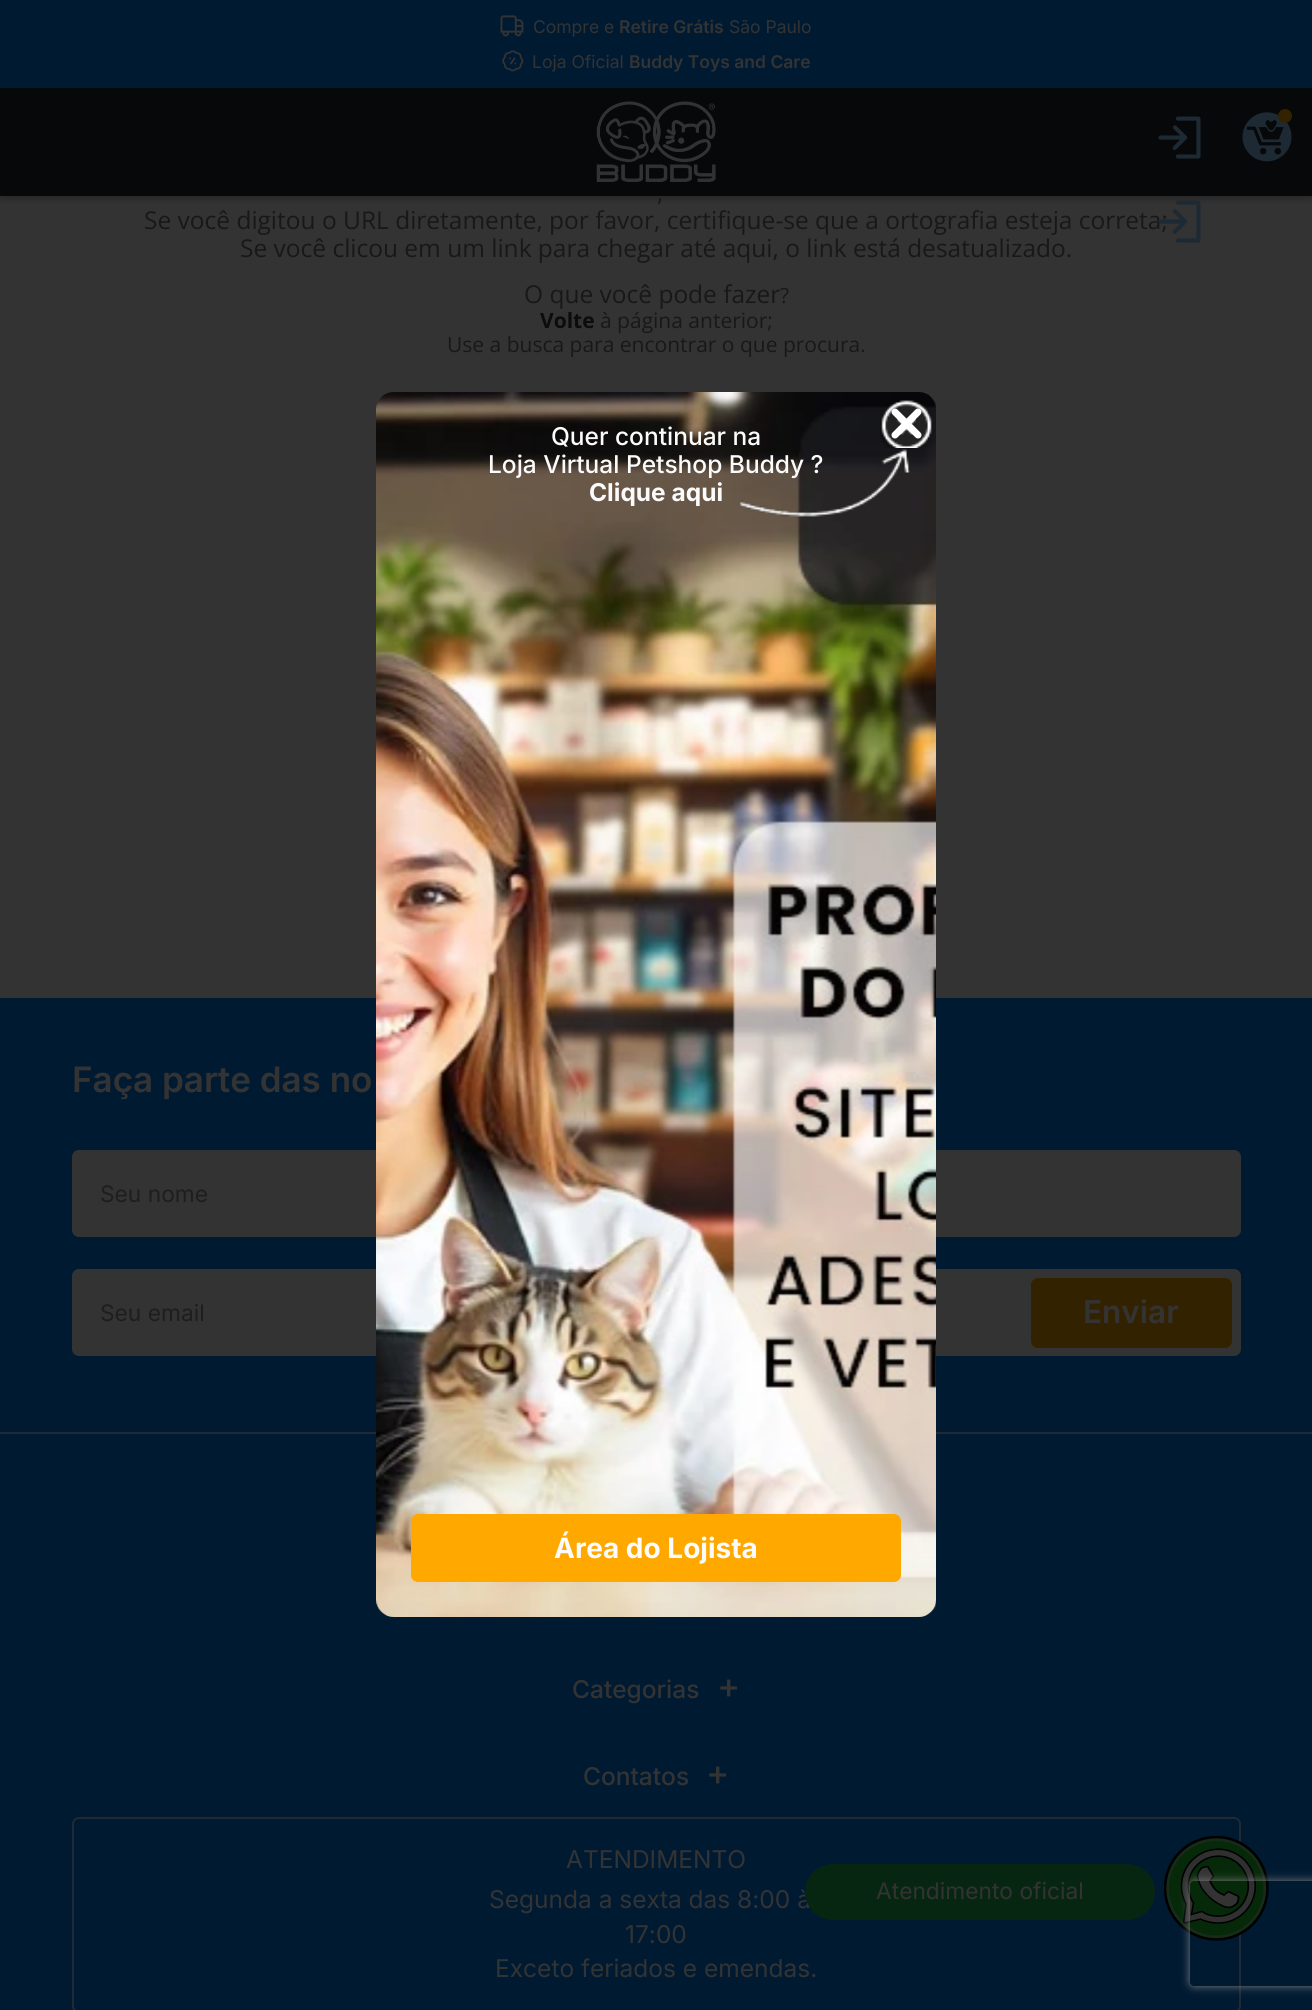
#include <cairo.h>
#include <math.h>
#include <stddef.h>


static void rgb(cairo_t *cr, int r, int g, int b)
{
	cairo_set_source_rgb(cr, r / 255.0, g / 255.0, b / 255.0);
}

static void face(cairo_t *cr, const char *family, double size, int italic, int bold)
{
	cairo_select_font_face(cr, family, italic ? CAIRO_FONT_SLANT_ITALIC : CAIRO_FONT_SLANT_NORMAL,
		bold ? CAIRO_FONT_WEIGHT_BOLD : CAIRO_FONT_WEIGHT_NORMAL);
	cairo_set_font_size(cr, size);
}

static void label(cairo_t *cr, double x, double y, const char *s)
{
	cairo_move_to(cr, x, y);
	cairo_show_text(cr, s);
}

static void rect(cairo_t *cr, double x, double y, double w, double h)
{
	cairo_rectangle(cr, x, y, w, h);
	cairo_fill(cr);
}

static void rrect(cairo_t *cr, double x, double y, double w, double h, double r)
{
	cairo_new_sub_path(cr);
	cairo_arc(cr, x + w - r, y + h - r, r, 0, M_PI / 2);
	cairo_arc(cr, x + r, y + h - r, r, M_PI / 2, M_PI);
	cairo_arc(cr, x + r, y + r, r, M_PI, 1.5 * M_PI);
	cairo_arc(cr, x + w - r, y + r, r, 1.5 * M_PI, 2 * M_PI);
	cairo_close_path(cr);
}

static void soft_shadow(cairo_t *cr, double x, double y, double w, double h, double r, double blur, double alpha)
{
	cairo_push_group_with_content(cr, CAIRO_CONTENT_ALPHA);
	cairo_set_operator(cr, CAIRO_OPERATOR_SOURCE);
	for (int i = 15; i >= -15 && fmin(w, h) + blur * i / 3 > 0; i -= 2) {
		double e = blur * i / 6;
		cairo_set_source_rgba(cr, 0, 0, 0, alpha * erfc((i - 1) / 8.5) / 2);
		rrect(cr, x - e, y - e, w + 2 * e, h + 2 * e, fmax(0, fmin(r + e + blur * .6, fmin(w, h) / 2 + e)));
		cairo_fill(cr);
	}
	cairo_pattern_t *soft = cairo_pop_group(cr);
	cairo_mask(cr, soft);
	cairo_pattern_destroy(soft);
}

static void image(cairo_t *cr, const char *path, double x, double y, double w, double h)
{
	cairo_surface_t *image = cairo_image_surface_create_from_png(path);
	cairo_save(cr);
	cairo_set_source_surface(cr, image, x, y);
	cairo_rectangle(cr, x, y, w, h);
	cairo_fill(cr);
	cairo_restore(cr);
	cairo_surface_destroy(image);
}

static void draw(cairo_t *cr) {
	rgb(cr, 51, 51, 51);
	cairo_paint(cr);
	rgb(cr, 0, 0, 0);
	soft_shadow(cr, 0, 4, 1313, 196, 0, 2.5, 0.2);
	rgb(cr, 0, 26, 50);
	rect(cr, 0, 0, 1312, 88);
	image(cr, "image0.png", 500, 15, 24, 22);
	face(cr, "Inter", 17.5, 0, 0);
	rgb(cr, 51, 51, 51);
	label(cr, 533, 33, "Compre e");
	face(cr, "Inter SemiBold", 17.5, 0, 0);
	label(cr, 619, 33, "Retire Grátis");
	face(cr, "Inter", 17.5, 0, 0);
	label(cr, 729, 33, "São Paulo");
	image(cr, "image1.png", 502, 50, 22, 22);
	label(cr, 532, 68, "Loja Oficial");
	face(cr, "Inter SemiBold", 17.5, 0, 0);
	label(cr, 629, 68, "Buddy Toys and Care");
	rgb(cr, 6, 8, 10);
	rect(cr, 0, 88, 1312, 108);
	image(cr, "image2.png", 596, 101, 120, 81);
	image(cr, "image3.png", 1158, 116, 43, 43);
	face(cr, "Open Sans", 24.5, 0, 0);
	rgb(cr, 24, 24, 24);
	label(cr, 144, 229, "Se você digitou o URL diretamente, por favor, certifique-se que a ortografia esteja correta;");
	image(cr, "image4.png", 1158, 200, 43, 43);
	image(cr, "image5.png", 1242, 112, 50, 50);
	rgb(cr, 51, 34, 0);
	cairo_arc(cr, 1285, 116, 7, 0, 2 * M_PI);
	cairo_fill(cr);
	rgb(cr, 24, 24, 24);
	label(cr, 657, 201, ",");
	label(cr, 240, 257, "Se você clicou em um link para chegar até aqui, o link está desatualizado.");
	label(cr, 524, 303, "O que você pode fazer");
	face(cr, "Open Sans", 21, 0, 0);
	label(cr, 780, 303, "?");
	face(cr, "Open Sans", 21, 0, 1);
	rgb(cr, 12, 12, 12);
	label(cr, 540, 328, "Volte");
	face(cr, "Open Sans", 21, 0, 0);
	rgb(cr, 24, 24, 24);
	label(cr, 600, 328, "à página anterior;");
	label(cr, 447, 352, "Use a busca para encontrar o que procura.");
	rgb(cr, 0, 26, 50);
	rect(cr, 0, 998, 1312, 434);
	rgb(cr, 33, 41, 51);
	rect(cr, 0, 1432, 1312, 2);
	face(cr, "Inter SemiBold", 35, 0, 0);
	rgb(cr, 51, 51, 51);
	label(cr, 72, 1092, "Faça parte das no");
	rrect(cr, 73, 1151, 1167, 85, 6);
	cairo_fill_preserve(cr);
	cairo_stroke(cr);
	face(cr, "Inter", 22.75, 0, 0);
	rgb(cr, 30, 30, 30);
	label(cr, 100, 1202, "Seu nome");
	rgb(cr, 51, 51, 51);
	rrect(cr, 73, 1270, 1167, 85, 6);
	cairo_fill_preserve(cr);
	cairo_stroke(cr);
	rgb(cr, 30, 30, 30);
	label(cr, 100, 1321, "Seu email");
	rgb(cr, 51, 34, 0);
	rrect(cr, 1031, 1278, 201, 70, 7);
	cairo_fill(cr);
	face(cr, "Inter SemiBold", 31.5, 0, 0);
	rgb(cr, 51, 51, 51);
	label(cr, 1083, 1323, "Enviar");
	rgb(cr, 0, 26, 50);
	rect(cr, 0, 1434, 1312, 576);
	face(cr, "Inter Medium", 24.5, 0, 0);
	rgb(cr, 51, 51, 51);
	label(cr, 572, 1698, "Categorias");
	face(cr, "Inter Medium", 35, 0, 0);
	label(cr, 717, 1698, "+");
	face(cr, "Inter Medium", 24.5, 0, 0);
	label(cr, 583, 1785, "Contatos");
	face(cr, "Inter Medium", 35, 0, 0);
	label(cr, 706, 1785, "+");
	rrect(cr, 73, 1818, 1167, 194, 6);
	rgb(cr, 33, 41, 51);
	cairo_stroke(cr);
	face(cr, "Inter", 24.5, 0, 0);
	rgb(cr, 51, 51, 51);
	label(cr, 566, 1868, "ATENDIMENTO");
	label(cr, 489, 1908, "Segunda a sexta das 8:00 à");
	label(cr, 625, 1943, "17:00");
	label(cr, 495, 1977, "Exceto feriados e emendas.");
	image(cr, "image6.png", 1164, 1836, 105, 105);
	rgb(cr, 6, 38, 18);
	rrect(cr, 805, 1864, 350, 56, 28);
	cairo_fill(cr);
	face(cr, "Inter", 22.75, 0, 0);
	rgb(cr, 51, 51, 51);
	label(cr, 876, 1899, "Atendimento oficial");
	image(cr, "image7.png", 376, 392, 560, 1225);
	face(cr, "Inter Medium", 24.5, 0, 0);
	rgb(cr, 251, 251, 251);
	label(cr, 551, 445, "Quer continuar na");
	label(cr, 488, 473, "Loja Virtual Petshop Buddy ?");
	image(cr, "image8.png", 738, 449, 172, 69);
	face(cr, "Inter", 24.5, 0, 1);
	label(cr, 589, 501, "Clique aqui");
	rgb(cr, 254, 168, 0);
	rrect(cr, 411, 1514, 490, 68, 7);
	cairo_fill(cr);
	face(cr, "Inter", 28, 0, 1);
	rgb(cr, 251, 251, 251);
	label(cr, 554, 1558, "Área do Lojista");
	cairo_save(cr);
	cairo_set_fill_rule(cr, CAIRO_FILL_RULE_EVEN_ODD);
	cairo_new_path(cr);
	cairo_move_to(cr, 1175, 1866);
	cairo_line_to(cr, 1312, 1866);
	cairo_line_to(cr, 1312, 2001);
	cairo_line_to(cr, 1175, 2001);
	cairo_close_path(cr);
	cairo_move_to(cr, 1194, 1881);
	cairo_line_to(cr, 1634, 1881);
	cairo_curve_to(cr, 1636, 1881, 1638, 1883, 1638, 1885);
	cairo_line_to(cr, 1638, 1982);
	cairo_curve_to(cr, 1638, 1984, 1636, 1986, 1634, 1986);
	cairo_line_to(cr, 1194, 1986);
	cairo_curve_to(cr, 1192, 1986, 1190, 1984, 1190, 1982);
	cairo_line_to(cr, 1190, 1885);
	cairo_curve_to(cr, 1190, 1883, 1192, 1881, 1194, 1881);
	cairo_close_path(cr);
	cairo_clip(cr);
	rgb(cr, 128, 128, 128);
	soft_shadow(cr, 1190, 1881, 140, 105, 4, 4.5, 1);
	cairo_restore(cr);
	image(cr, "image9.png", 880, 400, 52, 48);
	image(cr, "image10.png", 891, 408, 31, 31);
}

int main(void) {
	cairo_surface_t *surface = cairo_image_surface_create(CAIRO_FORMAT_RGB24, 1312, 2010);
	cairo_t *cr = cairo_create(surface);
	cairo_font_options_t *options = cairo_font_options_create();
	cairo_font_options_set_hint_metrics(options, CAIRO_HINT_METRICS_OFF);
	cairo_font_options_set_hint_style(options, CAIRO_HINT_STYLE_NONE);
	cairo_set_font_options(cr, options);
	cairo_set_miter_limit(cr, 4);
	draw(cr);
	cairo_surface_write_to_png(surface, "render.png");
	cairo_font_options_destroy(options);
	cairo_destroy(cr);
	cairo_surface_destroy(surface);
	return 0;
}
